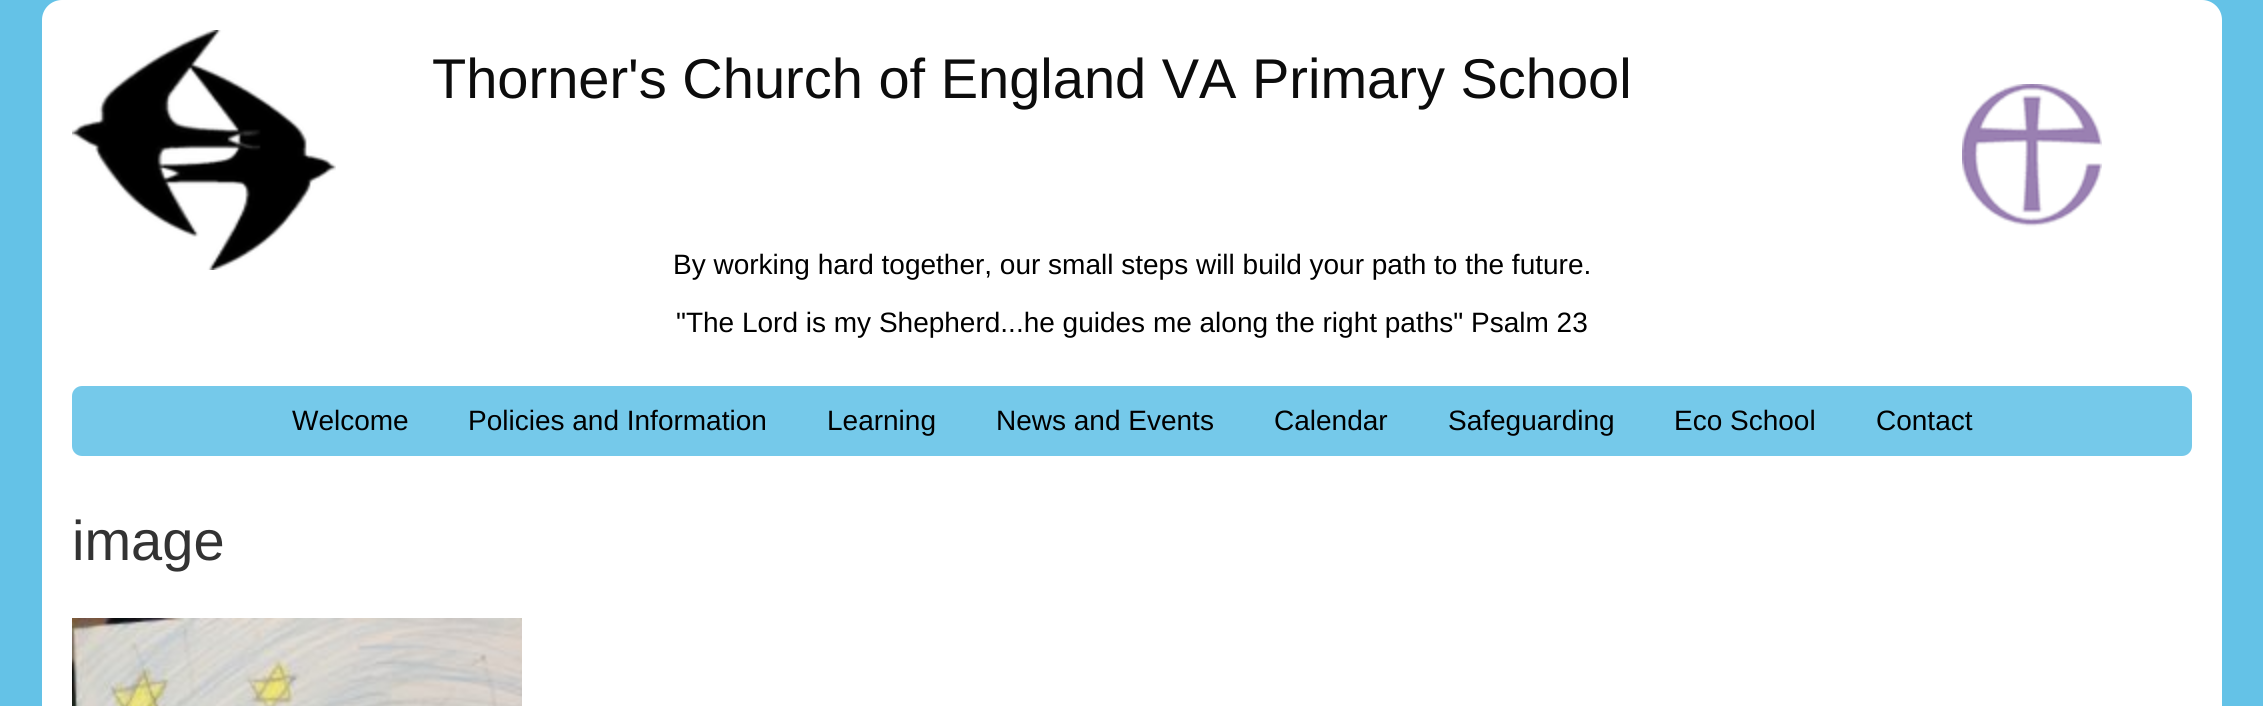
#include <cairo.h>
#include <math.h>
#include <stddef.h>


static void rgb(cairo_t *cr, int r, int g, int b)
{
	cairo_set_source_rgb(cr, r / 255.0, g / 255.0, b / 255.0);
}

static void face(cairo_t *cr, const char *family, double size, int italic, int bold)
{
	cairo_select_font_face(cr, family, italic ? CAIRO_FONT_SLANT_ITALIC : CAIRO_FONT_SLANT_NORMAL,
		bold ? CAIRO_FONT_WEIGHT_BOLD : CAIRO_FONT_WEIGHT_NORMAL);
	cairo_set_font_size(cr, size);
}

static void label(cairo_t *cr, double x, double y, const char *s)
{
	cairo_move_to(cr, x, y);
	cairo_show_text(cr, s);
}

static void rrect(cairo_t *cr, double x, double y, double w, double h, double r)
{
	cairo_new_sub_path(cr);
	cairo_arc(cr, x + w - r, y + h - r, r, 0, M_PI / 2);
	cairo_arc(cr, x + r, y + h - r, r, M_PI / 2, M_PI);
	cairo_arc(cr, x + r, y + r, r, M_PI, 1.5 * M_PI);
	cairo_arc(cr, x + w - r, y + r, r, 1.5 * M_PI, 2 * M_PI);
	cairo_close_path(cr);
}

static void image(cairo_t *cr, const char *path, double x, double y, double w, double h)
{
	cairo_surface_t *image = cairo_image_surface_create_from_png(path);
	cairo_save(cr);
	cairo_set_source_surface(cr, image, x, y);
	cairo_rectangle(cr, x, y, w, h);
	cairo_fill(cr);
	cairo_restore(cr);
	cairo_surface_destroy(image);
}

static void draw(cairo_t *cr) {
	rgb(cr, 100, 194, 231);
	cairo_paint(cr);
	rgb(cr, 255, 255, 255);
	rrect(cr, 42, 0, 2180, 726, 20);
	cairo_fill(cr);
	image(cr, "image0.png", 72, 30, 264, 240);
	face(cr, "Liberation Sans", 56, 0, 0);
	rgb(cr, 12, 12, 12);
	label(cr, 432, 98, "Thorner's Church of England VA Primary School");
	face(cr, "Liberation Sans", 28, 0, 0);
	rgb(cr, 0, 0, 0);
	label(cr, 673, 274, "By working hard together, our small steps will build your path to the future.");
	label(cr, 676, 332, "\"The Lord is my Shepherd...he guides me along the right paths\" Psalm 23");
	image(cr, "image1.png", 1962, 84, 140, 143);
	rgb(cr, 117, 201, 234);
	rrect(cr, 72, 386, 2120, 70, 10);
	cairo_fill(cr);
	rgb(cr, 0, 0, 0);
	label(cr, 292, 430, "Welcome");
	label(cr, 468, 430, "Policies and Information");
	label(cr, 827, 430, "Learning");
	label(cr, 996, 430, "News and Events");
	label(cr, 1274, 430, "Calendar");
	label(cr, 1448, 430, "Safeguarding");
	label(cr, 1674, 430, "Eco School");
	label(cr, 1876, 430, "Contact");
	face(cr, "Liberation Sans", 56, 0, 0);
	rgb(cr, 51, 51, 51);
	label(cr, 72, 560, "image");
	image(cr, "image2.png", 72, 618, 450, 88);
}

int main(void) {
	cairo_surface_t *surface = cairo_image_surface_create(CAIRO_FORMAT_RGB24, 2263, 706);
	cairo_t *cr = cairo_create(surface);
	cairo_font_options_t *options = cairo_font_options_create();
	cairo_font_options_set_hint_metrics(options, CAIRO_HINT_METRICS_OFF);
	cairo_font_options_set_hint_style(options, CAIRO_HINT_STYLE_NONE);
	cairo_set_font_options(cr, options);
	cairo_set_miter_limit(cr, 4);
	draw(cr);
	cairo_surface_write_to_png(surface, "render.png");
	cairo_font_options_destroy(options);
	cairo_destroy(cr);
	cairo_surface_destroy(surface);
	return 0;
}
